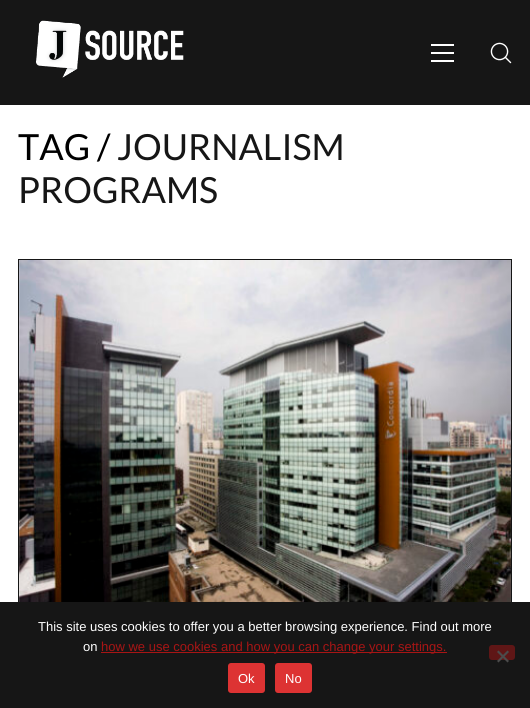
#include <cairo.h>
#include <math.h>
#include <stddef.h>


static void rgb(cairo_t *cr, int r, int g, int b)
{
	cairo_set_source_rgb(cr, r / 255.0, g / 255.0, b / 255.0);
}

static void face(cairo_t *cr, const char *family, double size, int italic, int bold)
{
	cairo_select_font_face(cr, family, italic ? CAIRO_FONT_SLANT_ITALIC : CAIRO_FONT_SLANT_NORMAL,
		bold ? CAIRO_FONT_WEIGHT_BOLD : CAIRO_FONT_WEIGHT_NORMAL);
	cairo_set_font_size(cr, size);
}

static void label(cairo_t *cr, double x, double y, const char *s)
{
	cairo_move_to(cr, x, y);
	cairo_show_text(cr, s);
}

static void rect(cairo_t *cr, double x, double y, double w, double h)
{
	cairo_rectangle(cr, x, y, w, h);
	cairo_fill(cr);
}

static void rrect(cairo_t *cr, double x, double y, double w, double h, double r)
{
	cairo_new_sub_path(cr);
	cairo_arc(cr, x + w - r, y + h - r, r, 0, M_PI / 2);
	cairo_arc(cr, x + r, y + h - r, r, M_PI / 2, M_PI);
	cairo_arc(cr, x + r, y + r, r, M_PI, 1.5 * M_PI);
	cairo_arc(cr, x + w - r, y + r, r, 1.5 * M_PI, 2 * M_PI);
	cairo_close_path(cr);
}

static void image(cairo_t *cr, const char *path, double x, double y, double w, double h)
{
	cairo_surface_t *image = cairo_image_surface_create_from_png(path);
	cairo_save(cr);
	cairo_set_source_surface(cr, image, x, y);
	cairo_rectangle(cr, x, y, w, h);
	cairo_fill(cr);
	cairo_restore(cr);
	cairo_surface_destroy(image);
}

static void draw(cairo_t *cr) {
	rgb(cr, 255, 255, 255);
	cairo_paint(cr);
	rgb(cr, 22, 22, 22);
	rect(cr, 0, 0, 530, 105);
	image(cr, "image0.png", 36, 20, 148, 58);
	rgb(cr, 255, 255, 255);
	rect(cr, 431, 44, 23, 2);
	rect(cr, 431, 52, 23, 2);
	rect(cr, 431, 60, 23, 2);
	image(cr, "image1.png", 490, 42, 22, 22);
	face(cr, "Lato", 36, 0, 0);
	rgb(cr, 0, 0, 0);
	label(cr, 18, 160, "TAG /");
	rgb(cr, 22, 22, 22);
	label(cr, 117, 160, "JOURNALISM");
	label(cr, 18, 203, "PROGRAMS");
	cairo_rectangle(cr, 18.5, 259.5, 493, 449);
	cairo_set_line_width(cr, 1);
	cairo_stroke(cr);
	image(cr, "image2.png", 19, 260, 492, 342);
	rect(cr, 0, 602, 530, 106);
	face(cr, "Liberation Sans", 13, 0, 0);
	rgb(cr, 255, 255, 255);
	label(cr, 38, 631, "This site uses cookies to offer you a better browsing experience. Find out more");
	label(cr, 83, 651, "on");
	rgb(cr, 168, 21, 21);
	rect(cr, 101, 652, 346, 1);
	label(cr, 101, 651, "how we use cookies and how you can change your settings.");
	rgb(cr, 95, 22, 22);
	rrect(cr, 489, 645, 26, 15, 3);
	cairo_fill(cr);
	rgb(cr, 75, 75, 75);
	cairo_new_path(cr);
	cairo_move_to(cr, 507.5, 650.5);
	cairo_line_to(cr, 509, 652);
	cairo_line_to(cr, 498.5, 662.5);
	cairo_line_to(cr, 497, 661);
	cairo_close_path(cr);
	cairo_fill(cr);
	cairo_new_path(cr);
	cairo_move_to(cr, 497, 652);
	cairo_line_to(cr, 498.5, 650.5);
	cairo_line_to(cr, 509, 661);
	cairo_line_to(cr, 507.5, 662.5);
	cairo_close_path(cr);
	cairo_fill(cr);
	rgb(cr, 221, 51, 51);
	rrect(cr, 228, 663, 37, 30, 3);
	cairo_fill(cr);
	rgb(cr, 255, 255, 255);
	label(cr, 238, 683, "Ok");
	rgb(cr, 221, 51, 51);
	rrect(cr, 275, 663, 37, 30, 3);
	cairo_fill(cr);
	rgb(cr, 255, 255, 255);
	label(cr, 285, 683, "No");
}

int main(void) {
	cairo_surface_t *surface = cairo_image_surface_create(CAIRO_FORMAT_RGB24, 530, 708);
	cairo_t *cr = cairo_create(surface);
	cairo_font_options_t *options = cairo_font_options_create();
	cairo_font_options_set_hint_metrics(options, CAIRO_HINT_METRICS_OFF);
	cairo_font_options_set_hint_style(options, CAIRO_HINT_STYLE_NONE);
	cairo_set_font_options(cr, options);
	cairo_set_miter_limit(cr, 4);
	draw(cr);
	cairo_surface_write_to_png(surface, "render.png");
	cairo_font_options_destroy(options);
	cairo_destroy(cr);
	cairo_surface_destroy(surface);
	return 0;
}
